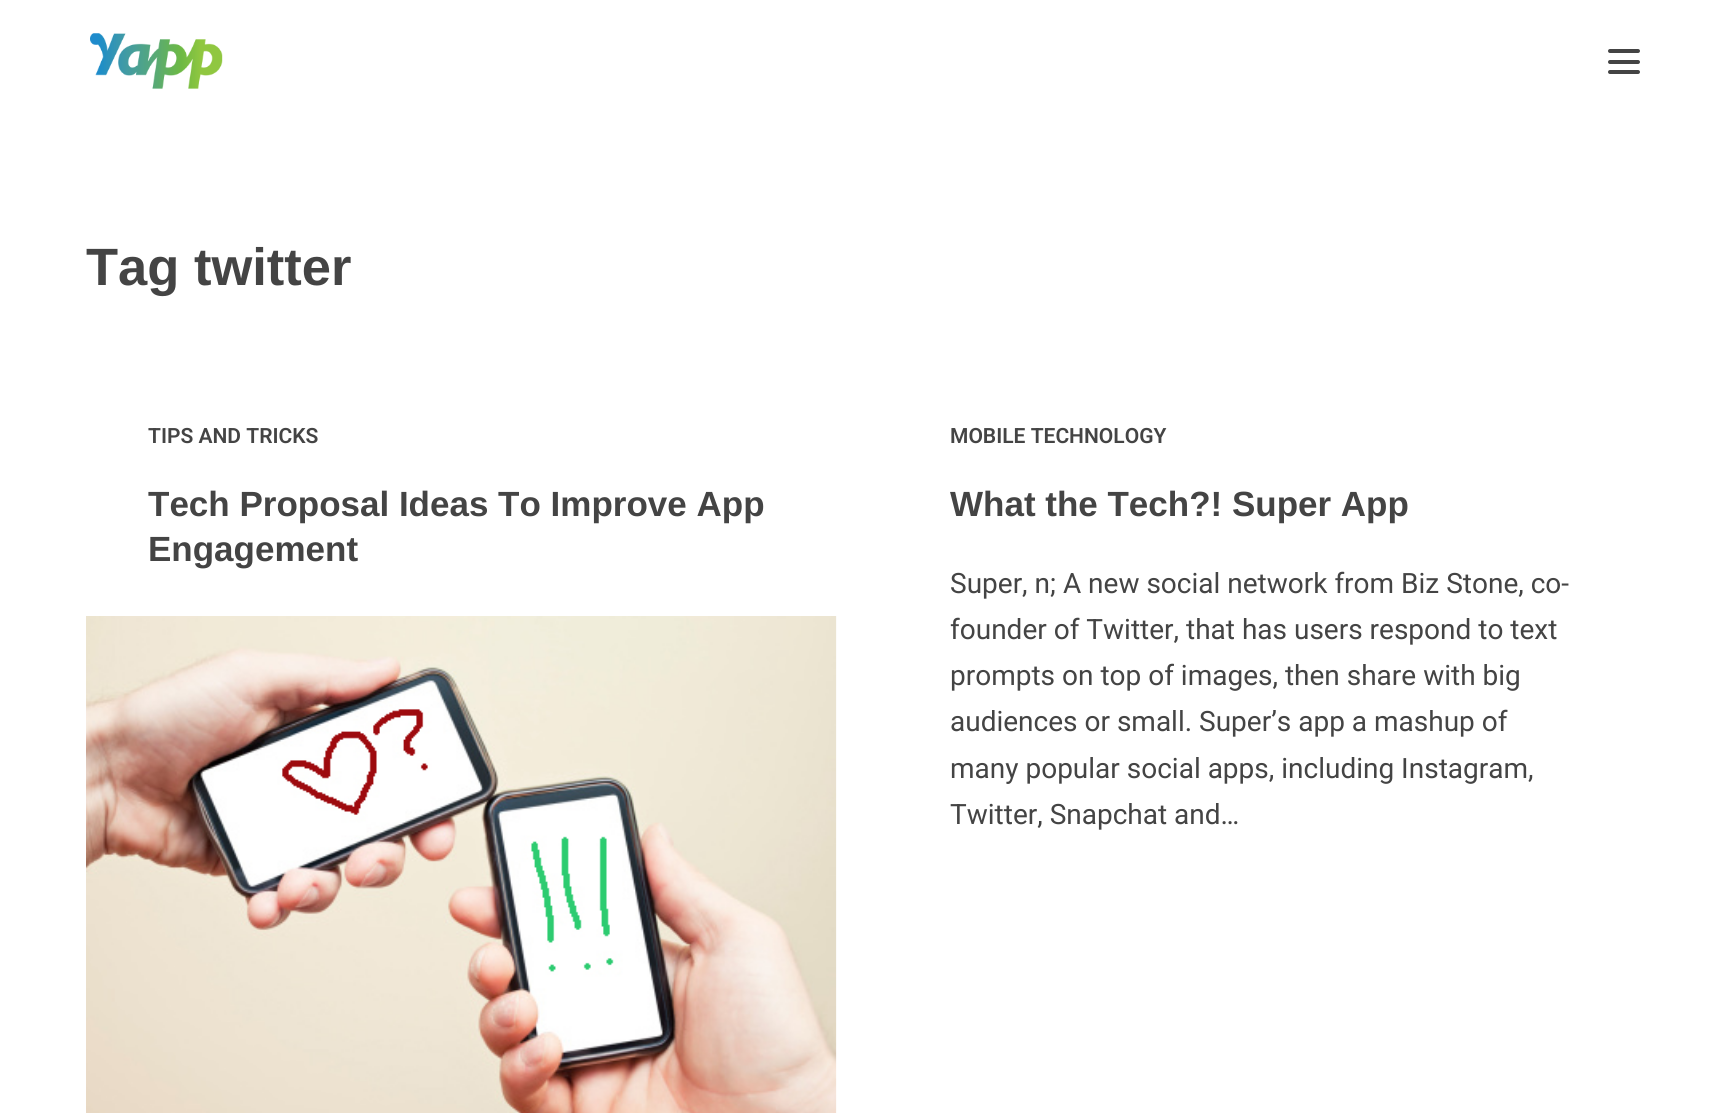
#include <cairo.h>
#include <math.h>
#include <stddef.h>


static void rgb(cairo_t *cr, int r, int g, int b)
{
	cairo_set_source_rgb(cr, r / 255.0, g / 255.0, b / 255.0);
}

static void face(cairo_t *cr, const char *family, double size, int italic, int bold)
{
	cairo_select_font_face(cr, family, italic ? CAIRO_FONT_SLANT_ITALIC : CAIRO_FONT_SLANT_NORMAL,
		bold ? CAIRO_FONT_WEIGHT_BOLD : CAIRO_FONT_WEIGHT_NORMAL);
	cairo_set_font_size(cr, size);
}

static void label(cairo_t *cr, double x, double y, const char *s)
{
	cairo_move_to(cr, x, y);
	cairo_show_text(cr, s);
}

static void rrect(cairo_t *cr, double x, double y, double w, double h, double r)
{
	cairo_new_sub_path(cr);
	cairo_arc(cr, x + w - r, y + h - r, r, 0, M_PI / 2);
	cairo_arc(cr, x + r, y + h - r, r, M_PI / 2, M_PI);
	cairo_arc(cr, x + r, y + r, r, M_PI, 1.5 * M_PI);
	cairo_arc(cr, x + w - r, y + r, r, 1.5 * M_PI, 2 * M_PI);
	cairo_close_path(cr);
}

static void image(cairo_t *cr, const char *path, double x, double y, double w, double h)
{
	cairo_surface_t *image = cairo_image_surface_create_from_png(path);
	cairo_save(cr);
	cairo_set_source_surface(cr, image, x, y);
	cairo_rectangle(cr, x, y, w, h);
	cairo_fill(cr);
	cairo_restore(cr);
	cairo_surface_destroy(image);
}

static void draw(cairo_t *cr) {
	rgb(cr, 255, 255, 255);
	cairo_paint(cr);
	image(cr, "image0.png", 90, 33, 133, 56);
	rgb(cr, 68, 68, 68);
	rrect(cr, 1608, 60, 32, 4, 2);
	cairo_fill(cr);
	rrect(cr, 1608, 49, 32, 4, 2);
	cairo_fill(cr);
	rrect(cr, 1608, 70, 32, 4, 2);
	cairo_fill(cr);
	face(cr, "Liberation Sans", 52.5, 0, 1);
	label(cr, 86, 285, "Tag twitter");
	face(cr, "Roboto SemiBold", 21, 0, 0);
	label(cr, 148, 443, "TIPS AND TRICKS");
	face(cr, "Liberation Sans", 35, 0, 1);
	label(cr, 148, 516, "Tech Proposal Ideas To Improve App");
	label(cr, 148, 561, "Engagement");
	image(cr, "image1.png", 86, 616, 751, 497);
	face(cr, "Roboto SemiBold", 21, 0, 0);
	label(cr, 950, 443, "MOBILE TECHNOLOGY");
	face(cr, "Liberation Sans", 35, 0, 1);
	label(cr, 950, 516, "What the Tech?! Super App");
	face(cr, "Roboto", 28, 0, 0);
	label(cr, 950, 593, "Super, n; A new social network from Biz Stone, co-");
	label(cr, 950, 639, "founder of Twitter, that has users respond to text");
	label(cr, 950, 685, "prompts on top of images, then share with big");
	label(cr, 950, 731, "audiences or small. Super’s app a mashup of");
	label(cr, 950, 778, "many popular social apps, including Instagram,");
	label(cr, 950, 824, "Twitter, Snapchat and…");
}

int main(void) {
	cairo_surface_t *surface = cairo_image_surface_create(CAIRO_FORMAT_RGB24, 1724, 1113);
	cairo_t *cr = cairo_create(surface);
	cairo_font_options_t *options = cairo_font_options_create();
	cairo_font_options_set_hint_metrics(options, CAIRO_HINT_METRICS_OFF);
	cairo_font_options_set_hint_style(options, CAIRO_HINT_STYLE_NONE);
	cairo_set_font_options(cr, options);
	cairo_set_miter_limit(cr, 4);
	draw(cr);
	cairo_surface_write_to_png(surface, "render.png");
	cairo_font_options_destroy(options);
	cairo_destroy(cr);
	cairo_surface_destroy(surface);
	return 0;
}
